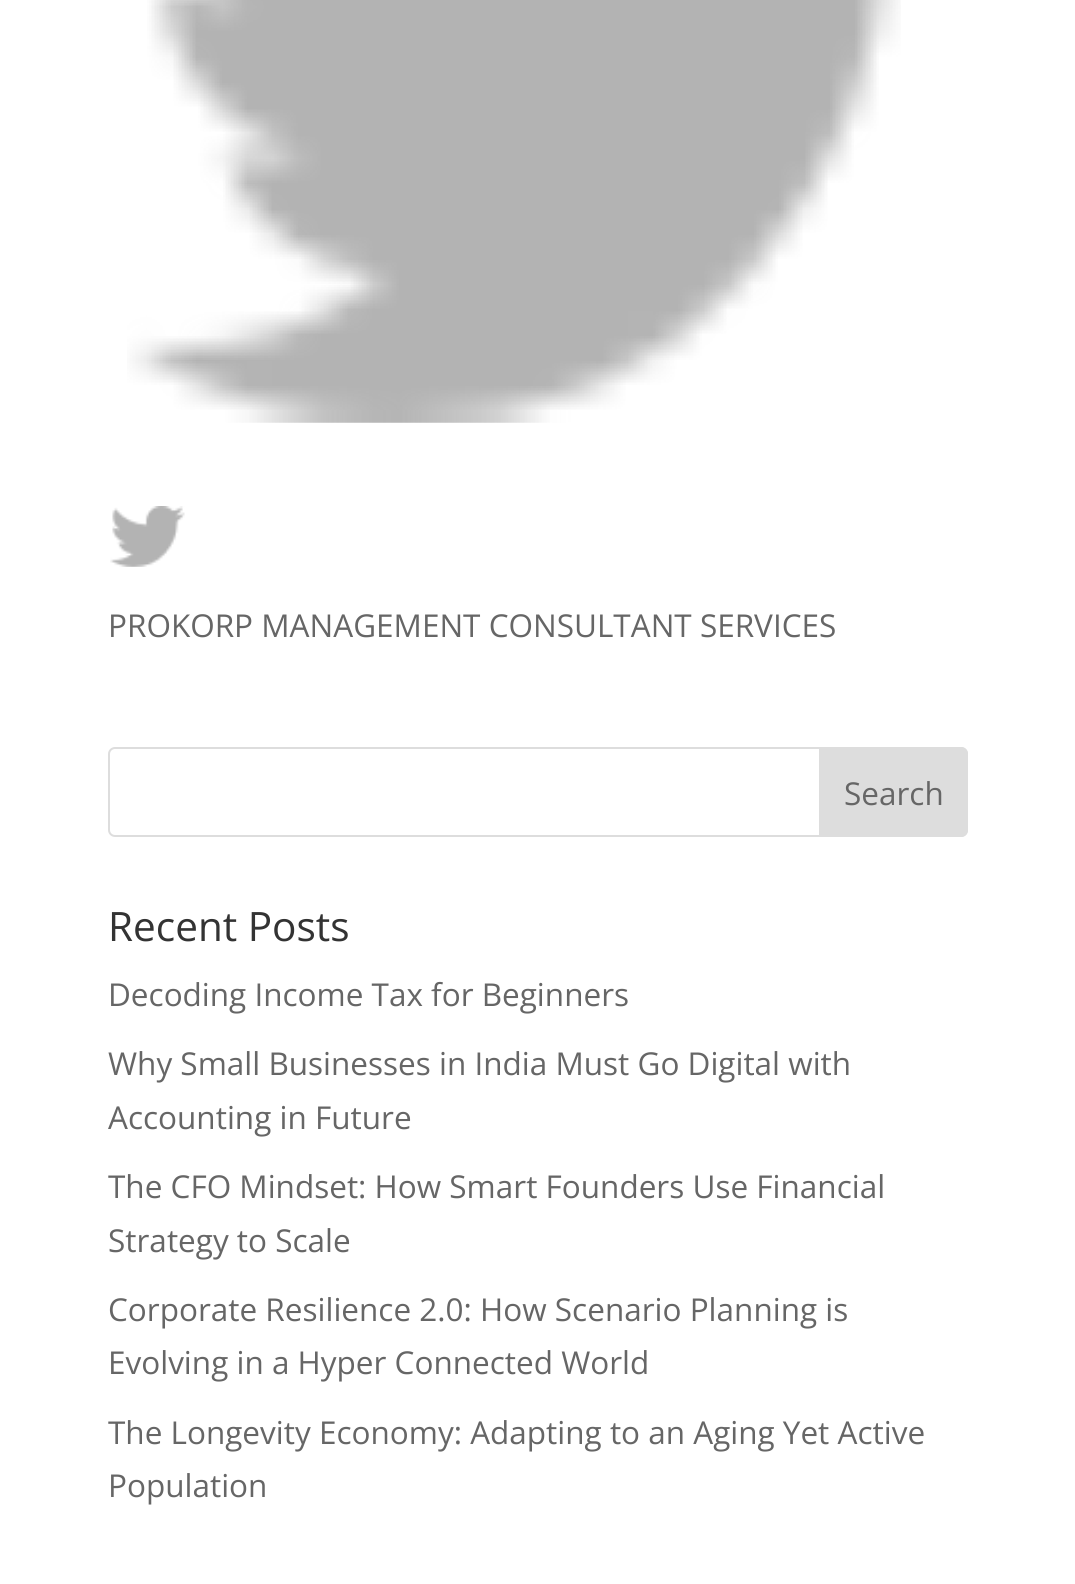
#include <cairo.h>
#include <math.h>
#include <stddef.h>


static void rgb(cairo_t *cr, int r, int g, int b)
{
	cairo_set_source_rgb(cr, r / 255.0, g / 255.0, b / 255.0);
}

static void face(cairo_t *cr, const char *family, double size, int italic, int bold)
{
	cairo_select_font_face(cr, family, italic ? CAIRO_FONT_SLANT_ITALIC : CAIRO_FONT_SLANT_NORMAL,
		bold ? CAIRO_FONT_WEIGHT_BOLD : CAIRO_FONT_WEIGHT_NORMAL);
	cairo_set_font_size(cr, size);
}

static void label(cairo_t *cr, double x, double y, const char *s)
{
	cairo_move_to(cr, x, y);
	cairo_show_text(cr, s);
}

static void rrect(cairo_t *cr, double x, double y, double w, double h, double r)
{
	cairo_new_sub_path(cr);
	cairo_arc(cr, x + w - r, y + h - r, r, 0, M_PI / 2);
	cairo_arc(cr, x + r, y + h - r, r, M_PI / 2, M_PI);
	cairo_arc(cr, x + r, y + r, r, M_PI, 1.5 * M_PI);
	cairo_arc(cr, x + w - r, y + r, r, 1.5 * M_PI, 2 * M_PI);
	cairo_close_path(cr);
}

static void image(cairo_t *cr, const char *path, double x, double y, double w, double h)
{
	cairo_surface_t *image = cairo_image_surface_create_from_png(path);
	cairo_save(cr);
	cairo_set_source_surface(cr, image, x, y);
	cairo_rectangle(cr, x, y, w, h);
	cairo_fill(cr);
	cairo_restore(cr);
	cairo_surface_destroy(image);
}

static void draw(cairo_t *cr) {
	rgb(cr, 255, 255, 255);
	cairo_paint(cr);
	image(cr, "image0.png", 127, 0, 774, 423);
	image(cr, "image1.png", 110, 506, 75, 61);
	face(cr, "Open Sans", 31.5, 0, 0);
	rgb(cr, 102, 102, 102);
	label(cr, 108, 637, "PROKORP MANAGEMENT CONSULTANT SERVICES");
	rrect(cr, 109, 748, 858, 88, 6);
	rgb(cr, 221, 221, 221);
	cairo_stroke(cr);
	cairo_new_path(cr);
	cairo_move_to(cr, 820, 748);
	cairo_line_to(cr, 961, 748);
	cairo_curve_to(cr, 964.5, 748, 967, 750.5, 967, 754);
	cairo_line_to(cr, 967, 830);
	cairo_curve_to(cr, 967, 833.5, 964.5, 836, 961, 836);
	cairo_line_to(cr, 820, 836);
	cairo_close_path(cr);
	cairo_fill_preserve(cr);
	cairo_stroke(cr);
	rgb(cr, 102, 102, 102);
	label(cr, 844, 805, "Search");
	face(cr, "Open Sans", 40.5, 0, 0);
	rgb(cr, 51, 51, 51);
	label(cr, 108, 941, "Recent Posts");
	face(cr, "Open Sans", 31.5, 0, 0);
	rgb(cr, 102, 102, 102);
	label(cr, 108, 1006, "Decoding Income Tax for Beginners");
	label(cr, 108, 1075, "Why Small Businesses in India Must Go Digital with");
	label(cr, 108, 1129, "Accounting in Future");
	label(cr, 108, 1198, "The CFO Mindset: How Smart Founders Use Financial");
	label(cr, 108, 1252, "Strategy to Scale");
	label(cr, 108, 1321, "Corporate Resilience 2.0: How Scenario Planning is");
	label(cr, 108, 1374, "Evolving in a Hyper Connected World");
	label(cr, 108, 1444, "The Longevity Economy: Adapting to an Aging Yet Active");
	label(cr, 108, 1497, "Population");
}

int main(void) {
	cairo_surface_t *surface = cairo_image_surface_create(CAIRO_FORMAT_RGB24, 1075, 1584);
	cairo_t *cr = cairo_create(surface);
	cairo_font_options_t *options = cairo_font_options_create();
	cairo_font_options_set_hint_metrics(options, CAIRO_HINT_METRICS_OFF);
	cairo_font_options_set_hint_style(options, CAIRO_HINT_STYLE_NONE);
	cairo_set_font_options(cr, options);
	cairo_set_miter_limit(cr, 4);
	draw(cr);
	cairo_surface_write_to_png(surface, "render.png");
	cairo_font_options_destroy(options);
	cairo_destroy(cr);
	cairo_surface_destroy(surface);
	return 0;
}
